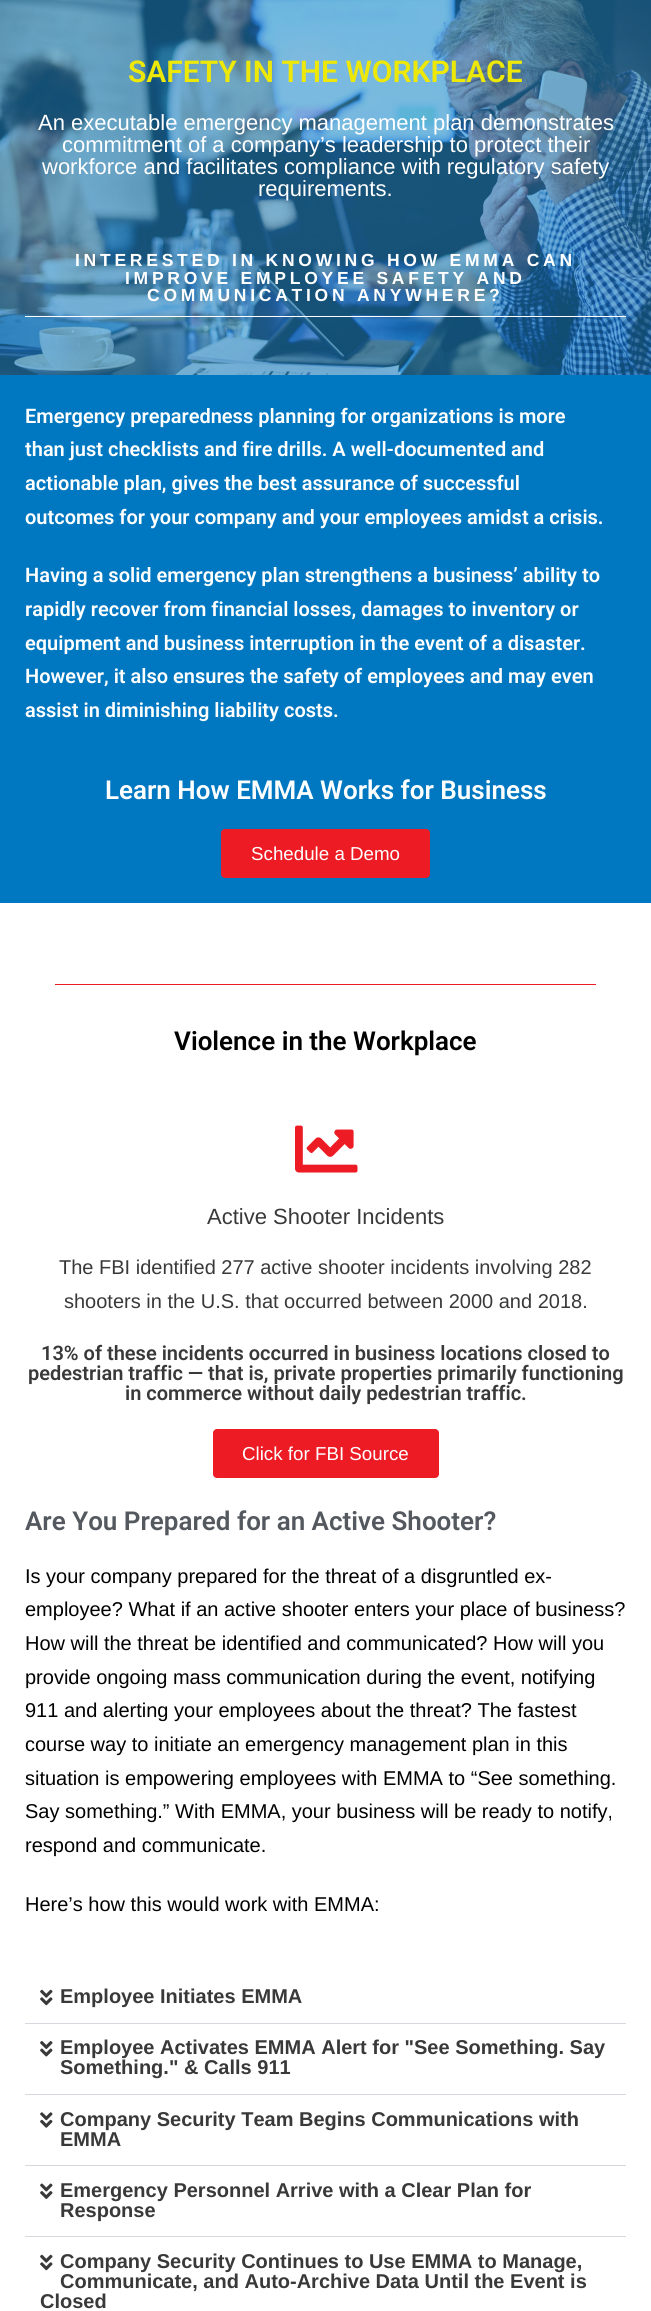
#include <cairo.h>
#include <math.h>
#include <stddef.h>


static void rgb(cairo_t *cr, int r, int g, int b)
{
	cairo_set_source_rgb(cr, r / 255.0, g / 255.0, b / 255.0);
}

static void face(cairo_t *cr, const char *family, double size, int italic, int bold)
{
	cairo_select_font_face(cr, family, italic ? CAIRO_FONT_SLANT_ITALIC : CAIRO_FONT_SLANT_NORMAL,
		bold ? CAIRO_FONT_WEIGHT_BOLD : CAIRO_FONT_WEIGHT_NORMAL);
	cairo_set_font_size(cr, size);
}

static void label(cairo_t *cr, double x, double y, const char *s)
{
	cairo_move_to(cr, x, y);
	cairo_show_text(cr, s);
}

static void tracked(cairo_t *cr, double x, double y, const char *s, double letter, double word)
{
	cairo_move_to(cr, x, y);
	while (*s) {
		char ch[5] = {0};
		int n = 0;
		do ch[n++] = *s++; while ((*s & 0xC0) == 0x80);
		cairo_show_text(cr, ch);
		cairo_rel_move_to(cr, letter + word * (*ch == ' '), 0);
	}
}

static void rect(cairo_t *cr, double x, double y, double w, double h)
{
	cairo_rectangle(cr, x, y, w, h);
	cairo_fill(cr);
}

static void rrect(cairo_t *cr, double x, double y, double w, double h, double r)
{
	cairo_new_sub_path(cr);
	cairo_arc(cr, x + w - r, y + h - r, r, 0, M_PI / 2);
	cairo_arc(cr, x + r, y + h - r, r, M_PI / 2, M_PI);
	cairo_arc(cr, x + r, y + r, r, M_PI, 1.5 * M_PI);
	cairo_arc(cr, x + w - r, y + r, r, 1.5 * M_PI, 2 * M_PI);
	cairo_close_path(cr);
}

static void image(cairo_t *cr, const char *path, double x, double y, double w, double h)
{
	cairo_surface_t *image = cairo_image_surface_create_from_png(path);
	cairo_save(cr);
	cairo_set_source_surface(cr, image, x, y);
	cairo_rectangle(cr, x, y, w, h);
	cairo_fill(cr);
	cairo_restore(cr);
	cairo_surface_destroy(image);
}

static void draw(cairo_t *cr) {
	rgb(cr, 255, 255, 255);
	cairo_paint(cr);
	image(cr, "image0.png", 0, 0, 651, 375);
	face(cr, "Roboto SemiBold", 30, 0, 0);
	rgb(cr, 238, 232, 9);
	label(cr, 128, 82, "SAFETY IN THE WORKPLACE");
	face(cr, "Liberation Sans", 22, 0, 0);
	rgb(cr, 255, 255, 255);
	label(cr, 38, 130, "An executable emergency management plan demonstrates");
	label(cr, 62, 152, "commitment of a company’s leadership to protect their");
	label(cr, 42, 174, "workforce and facilitates compliance with regulatory safety");
	label(cr, 258, 196, "requirements.");
	rect(cr, 25, 316, 601, 1);
	face(cr, "Liberation Sans", 17.5, 0, 1);
	tracked(cr, 75, 266, "INTERESTED IN KNOWING HOW EMMA CAN", 3.75, 0);
	tracked(cr, 125, 284, "IMPROVE EMPLOYEE SAFETY AND", 3.75, 0);
	tracked(cr, 147, 301, "COMMUNICATION ANYWHERE?", 3.75, 0);
	rgb(cr, 0, 120, 193);
	rect(cr, 0, 375, 651, 528);
	face(cr, "Roboto SemiBold", 20, 0, 0);
	rgb(cr, 255, 255, 255);
	label(cr, 25, 423, "Emergency preparedness planning for organizations is more");
	label(cr, 25, 456, "than just checklists and fire drills. A well-documented and");
	label(cr, 25, 490, "actionable plan, gives the best assurance of successful");
	label(cr, 25, 524, "outcomes for your company and your employees amidst a crisis.");
	label(cr, 25, 582, "Having a solid emergency plan strengthens a business’ ability to");
	label(cr, 25, 616, "rapidly recover from financial losses, damages to inventory or");
	label(cr, 25, 650, "equipment and business interruption in the event of a disaster.");
	label(cr, 25, 683, "However, it also ensures the safety of employees and may even");
	label(cr, 25, 717, "assist in diminishing liability costs.");
	face(cr, "Roboto SemiBold", 26, 0, 0);
	label(cr, 105, 799, "Learn How EMMA Works for Business");
	rgb(cr, 237, 28, 36);
	rrect(cr, 221, 829, 209, 49, 4);
	cairo_fill(cr);
	face(cr, "Liberation Sans", 18.75, 0, 0);
	rgb(cr, 255, 255, 255);
	label(cr, 251, 860, "Schedule a Demo");
	rgb(cr, 237, 28, 36);
	rect(cr, 55, 984, 541, 1);
	face(cr, "Roboto SemiBold", 26, 0, 0);
	rgb(cr, 0, 0, 0);
	label(cr, 174, 1050, "Violence in the Workplace");
	image(cr, "image1.png", 295, 1125, 63, 48);
	face(cr, "Liberation Sans", 22, 0, 0);
	rgb(cr, 57, 57, 57);
	label(cr, 207, 1224, "Active Shooter Incidents");
	face(cr, "Liberation Sans", 20, 0, 0);
	label(cr, 59, 1274, "The FBI identified 277 active shooter incidents involving 282");
	label(cr, 64, 1308, "shooters in the U.S. that occurred between 2000 and 2018.");
	face(cr, "Roboto SemiBold", 20, 0, 0);
	label(cr, 41, 1360, "13% of these incidents occurred in business locations closed to");
	label(cr, 28, 1380, "pedestrian traffic — that is, private properties primarily functioning");
	label(cr, 125, 1400, "in commerce without daily pedestrian traffic.");
	rgb(cr, 237, 28, 36);
	rrect(cr, 213, 1429, 226, 49, 4);
	cairo_fill(cr);
	face(cr, "Liberation Sans", 18.75, 0, 0);
	rgb(cr, 255, 255, 255);
	label(cr, 242, 1460, "Click for FBI Source");
	face(cr, "Roboto SemiBold", 26, 0, 0);
	rgb(cr, 84, 89, 95);
	label(cr, 25, 1530, "Are You Prepared for an Active Shooter?");
	face(cr, "Liberation Sans", 20, 0, 0);
	rgb(cr, 0, 0, 0);
	label(cr, 25, 1583, "Is your company prepared for the threat of a disgruntled ex-");
	label(cr, 25, 1616, "employee? What if an active shooter enters your place of business?");
	label(cr, 25, 1650, "How will the threat be identified and communicated? How will you");
	label(cr, 25, 1684, "provide ongoing mass communication during the event, notifying");
	label(cr, 25, 1717, "911 and alerting your employees about the threat? The fastest");
	label(cr, 25, 1751, "course way to initiate an emergency management plan in this");
	label(cr, 25, 1785, "situation is empowering employees with EMMA to “See something.");
	label(cr, 25, 1818, "Say something.” With EMMA, your business will be ready to notify,");
	label(cr, 25, 1852, "respond and communicate.");
	label(cr, 25, 1911, "Here’s how this would work with EMMA:");
	rgb(cr, 213, 216, 220);
	rect(cr, 25, 2023, 601, 1);
	image(cr, "image2.png", 40, 1989, 13, 17);
	face(cr, "Liberation Sans", 20, 0, 1);
	rgb(cr, 57, 57, 57);
	label(cr, 60, 2003, "Employee Initiates EMMA");
	rgb(cr, 213, 216, 220);
	rect(cr, 25, 2094, 601, 1);
	image(cr, "image3.png", 40, 2041, 13, 16);
	rgb(cr, 57, 57, 57);
	label(cr, 60, 2054, "Employee Activates EMMA Alert for \"See Something. Say");
	label(cr, 60, 2074, "Something.\" & Calls 911");
	rgb(cr, 213, 216, 220);
	rect(cr, 25, 2165, 601, 1);
	image(cr, "image4.png", 40, 2112, 13, 16);
	rgb(cr, 57, 57, 57);
	label(cr, 60, 2126, "Company Security Team Begins Communications with");
	label(cr, 60, 2146, "EMMA");
	rgb(cr, 213, 216, 220);
	rect(cr, 25, 2236, 601, 1);
	image(cr, "image5.png", 40, 2183, 13, 16);
	rgb(cr, 57, 57, 57);
	label(cr, 60, 2197, "Emergency Personnel Arrive with a Clear Plan for");
	label(cr, 60, 2217, "Response");
	image(cr, "image2.png", 40, 2254, 13, 17);
	label(cr, 60, 2268, "Company Security Continues to Use EMMA to Manage,");
	label(cr, 60, 2288, "Communicate, and Auto-Archive Data Until the Event is");
	label(cr, 40, 2308, "Closed");
}

int main(void) {
	cairo_surface_t *surface = cairo_image_surface_create(CAIRO_FORMAT_RGB24, 651, 2311);
	cairo_t *cr = cairo_create(surface);
	cairo_font_options_t *options = cairo_font_options_create();
	cairo_font_options_set_hint_metrics(options, CAIRO_HINT_METRICS_OFF);
	cairo_font_options_set_hint_style(options, CAIRO_HINT_STYLE_NONE);
	cairo_set_font_options(cr, options);
	cairo_set_miter_limit(cr, 4);
	draw(cr);
	cairo_surface_write_to_png(surface, "render.png");
	cairo_font_options_destroy(options);
	cairo_destroy(cr);
	cairo_surface_destroy(surface);
	return 0;
}
